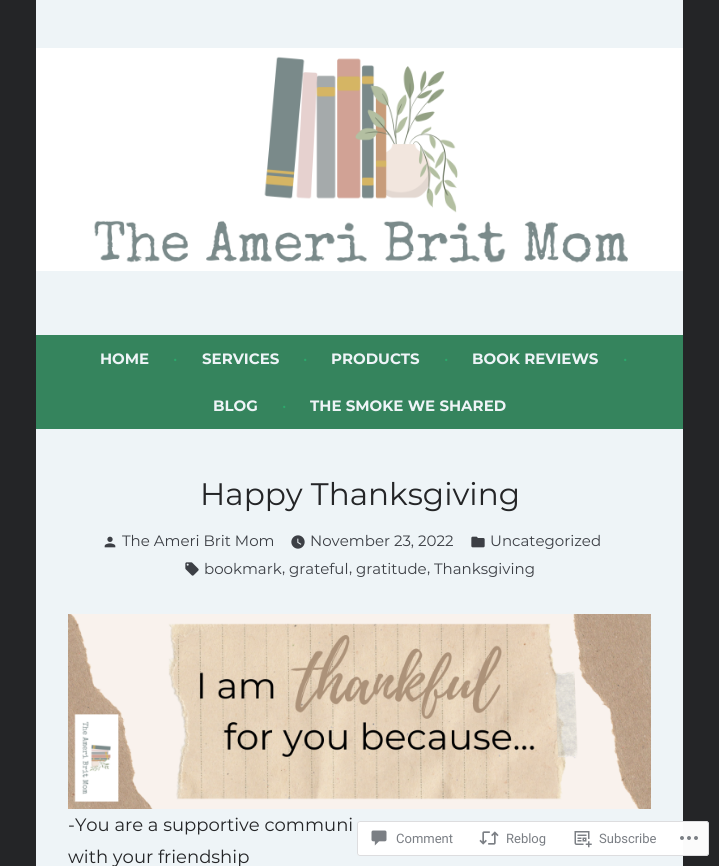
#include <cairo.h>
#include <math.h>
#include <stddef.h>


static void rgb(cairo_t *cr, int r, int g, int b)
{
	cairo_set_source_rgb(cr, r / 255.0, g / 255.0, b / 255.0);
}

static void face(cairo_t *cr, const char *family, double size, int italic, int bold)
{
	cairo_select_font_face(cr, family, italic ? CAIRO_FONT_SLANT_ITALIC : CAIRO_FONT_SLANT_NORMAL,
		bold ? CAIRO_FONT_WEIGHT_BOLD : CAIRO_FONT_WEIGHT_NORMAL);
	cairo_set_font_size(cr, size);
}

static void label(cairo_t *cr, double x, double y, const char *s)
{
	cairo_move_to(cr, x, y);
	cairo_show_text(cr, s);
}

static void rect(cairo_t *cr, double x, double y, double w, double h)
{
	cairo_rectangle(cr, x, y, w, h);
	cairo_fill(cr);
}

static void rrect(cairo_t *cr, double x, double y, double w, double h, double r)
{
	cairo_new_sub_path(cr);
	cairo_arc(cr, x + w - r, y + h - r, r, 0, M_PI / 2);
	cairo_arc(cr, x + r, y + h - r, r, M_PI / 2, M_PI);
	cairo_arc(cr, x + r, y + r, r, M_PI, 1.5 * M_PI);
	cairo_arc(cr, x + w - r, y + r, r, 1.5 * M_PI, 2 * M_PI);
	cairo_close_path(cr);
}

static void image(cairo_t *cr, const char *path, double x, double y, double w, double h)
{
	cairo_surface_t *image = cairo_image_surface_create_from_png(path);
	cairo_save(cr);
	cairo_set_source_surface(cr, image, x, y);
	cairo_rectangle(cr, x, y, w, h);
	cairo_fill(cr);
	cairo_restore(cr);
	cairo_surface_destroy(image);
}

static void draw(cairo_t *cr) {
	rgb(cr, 36, 37, 39);
	cairo_paint(cr);
	rgb(cr, 238, 244, 247);
	rect(cr, 36, 0, 647, 866);
	image(cr, "image0.png", 36, 48, 647, 223);
	rgb(cr, 53, 132, 93);
	rect(cr, 36, 335, 647, 94);
	face(cr, "Montserrat", 15, 0, 1);
	rgb(cr, 238, 244, 247);
	label(cr, 100, 364, "HOME");
	face(cr, "Montserrat", 15, 0, 0);
	rgb(cr, 43, 170, 107);
	label(cr, 173, 364, "•");
	face(cr, "Montserrat", 15, 0, 1);
	rgb(cr, 238, 244, 247);
	label(cr, 202, 364, "SERVICES");
	face(cr, "Montserrat", 15, 0, 0);
	rgb(cr, 43, 170, 107);
	label(cr, 303, 364, "•");
	face(cr, "Montserrat", 15, 0, 1);
	rgb(cr, 238, 244, 247);
	label(cr, 331, 364, "PRODUCTS");
	face(cr, "Montserrat", 15, 0, 0);
	rgb(cr, 43, 170, 107);
	label(cr, 444, 364, "•");
	face(cr, "Montserrat", 15, 0, 1);
	rgb(cr, 238, 244, 247);
	label(cr, 472, 364, "BOOK REVIEWS");
	face(cr, "Montserrat", 15, 0, 0);
	rgb(cr, 43, 170, 107);
	label(cr, 623, 364, "•");
	face(cr, "Montserrat", 15, 0, 1);
	rgb(cr, 238, 244, 247);
	label(cr, 213, 411, "BLOG");
	face(cr, "Montserrat", 15, 0, 0);
	rgb(cr, 43, 170, 107);
	label(cr, 282, 411, "•");
	face(cr, "Montserrat", 15, 0, 1);
	rgb(cr, 238, 244, 247);
	label(cr, 310, 411, "THE SMOKE WE SHARED");
	face(cr, "Montserrat", 31.1, 0, 0);
	rgb(cr, 36, 37, 39);
	label(cr, 200, 505, "Happy Thanksgiving");
	image(cr, "image1.png", 104, 536, 12, 12);
	face(cr, "Montserrat", 15, 0, 0);
	rgb(cr, 60, 63, 69);
	label(cr, 122, 546, "The Ameri Brit Mom");
	image(cr, "image2.png", 291, 535, 14, 14);
	label(cr, 310, 546, "November 23, 2022");
	image(cr, "image3.png", 471, 536, 14, 12);
	label(cr, 490, 546, "Uncategorized");
	image(cr, "image4.png", 185, 562, 14, 14);
	label(cr, 204, 574, "bookmark");
	label(cr, 282, 573, ",");
	label(cr, 289, 574, "grateful");
	label(cr, 349, 573, ",");
	label(cr, 356, 574, "gratitude");
	label(cr, 427, 573, ",");
	label(cr, 434, 574, "Thanksgiving");
	image(cr, "image5.png", 68, 614, 583, 195);
	face(cr, "Montserrat", 18, 0, 0);
	rgb(cr, 36, 37, 39);
	label(cr, 68, 831, "-You are a supportive communi");
	label(cr, 68, 863, "with your friendship");
	cairo_set_source_rgba(cr, 1, 1, 1, 0.98);
	rrect(cr, 357, 821, 352, 35, 3);
	cairo_fill(cr);
	rrect(cr, 357.5, 821.5, 351, 34, 2.5);
	cairo_set_source_rgba(cr, 0.863, 0.863, 0.871, 0.98);
	cairo_set_line_width(cr, 1);
	cairo_stroke(cr);
	image(cr, "image6.png", 371, 830, 16, 16);
	face(cr, "Roboto", 13, 0, 0);
	rgb(cr, 122, 126, 132);
	label(cr, 396, 843, "Comment");
	image(cr, "image7.png", 479, 831, 20, 14);
	label(cr, 506, 843, "Reblog");
	image(cr, "image8.png", 574, 831, 18, 17);
	label(cr, 599, 843, "Subscribe");
	image(cr, "image9.png", 680, 836, 18, 4);
}

int main(void) {
	cairo_surface_t *surface = cairo_image_surface_create(CAIRO_FORMAT_RGB24, 719, 866);
	cairo_t *cr = cairo_create(surface);
	cairo_font_options_t *options = cairo_font_options_create();
	cairo_font_options_set_hint_metrics(options, CAIRO_HINT_METRICS_OFF);
	cairo_font_options_set_hint_style(options, CAIRO_HINT_STYLE_NONE);
	cairo_set_font_options(cr, options);
	cairo_set_miter_limit(cr, 4);
	draw(cr);
	cairo_surface_write_to_png(surface, "render.png");
	cairo_font_options_destroy(options);
	cairo_destroy(cr);
	cairo_surface_destroy(surface);
	return 0;
}
